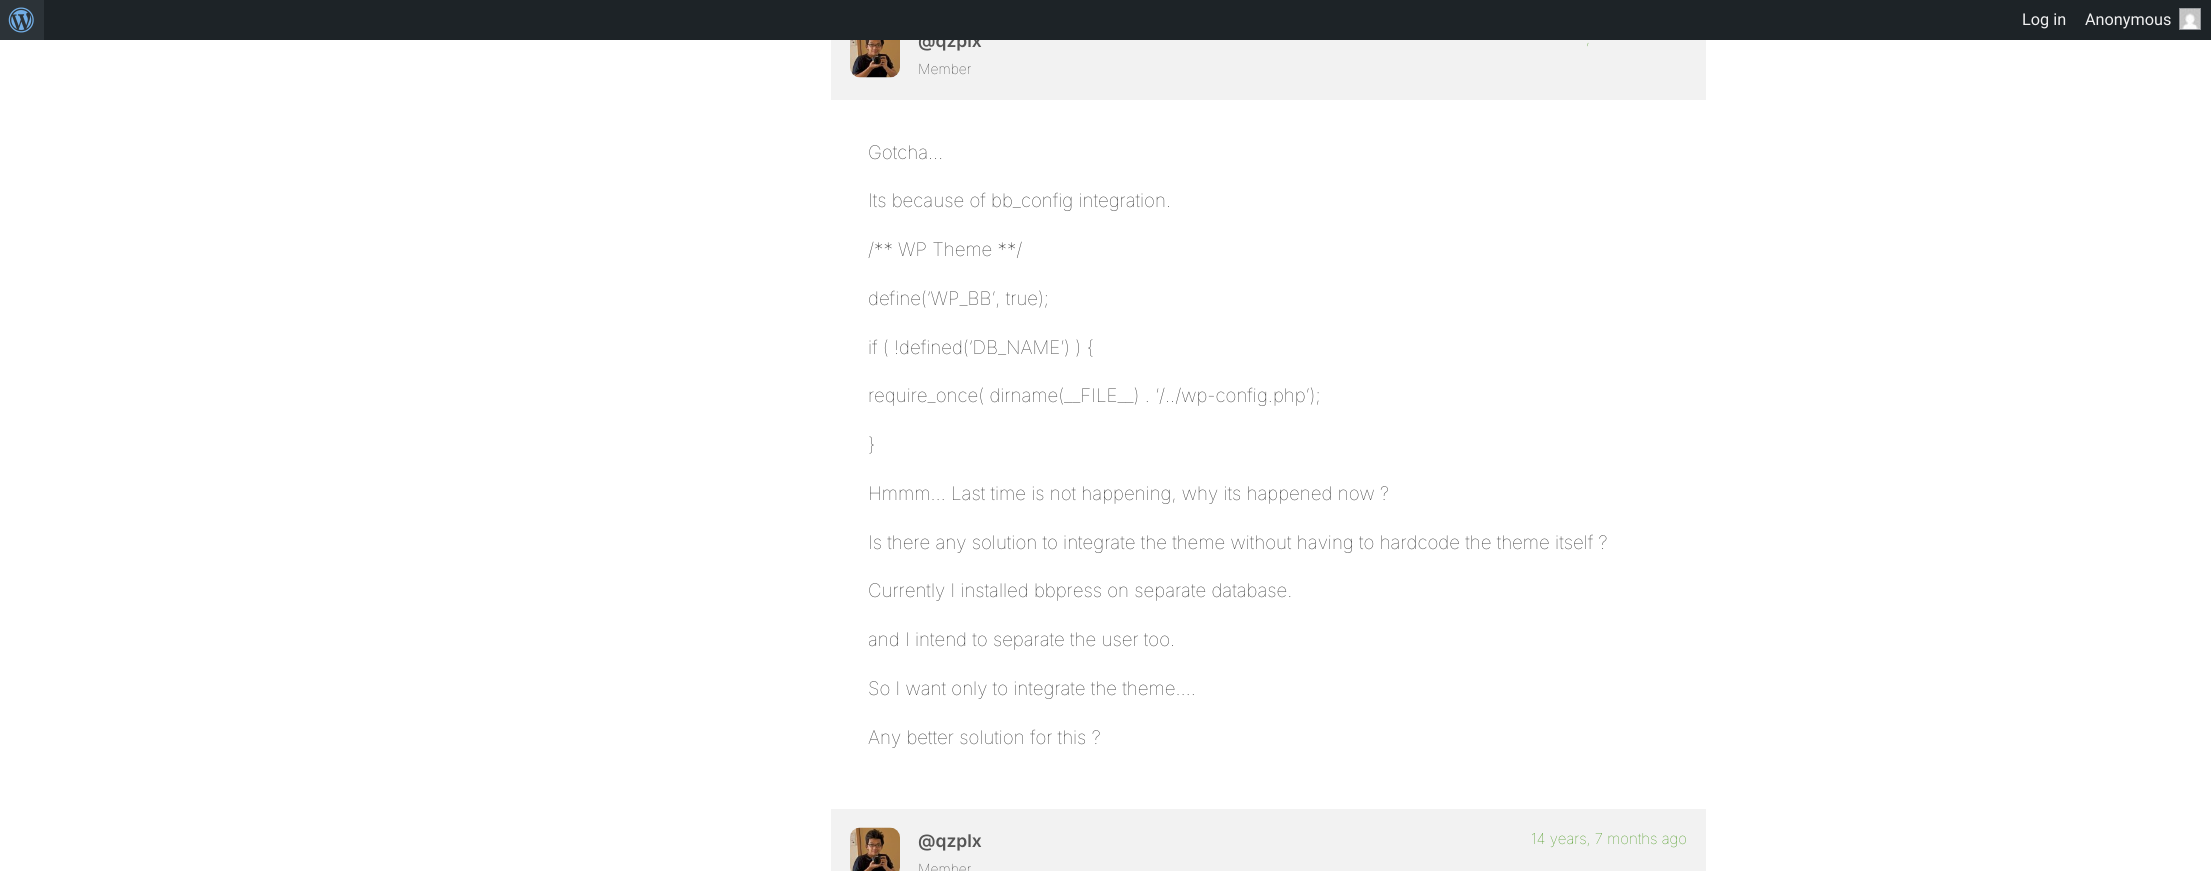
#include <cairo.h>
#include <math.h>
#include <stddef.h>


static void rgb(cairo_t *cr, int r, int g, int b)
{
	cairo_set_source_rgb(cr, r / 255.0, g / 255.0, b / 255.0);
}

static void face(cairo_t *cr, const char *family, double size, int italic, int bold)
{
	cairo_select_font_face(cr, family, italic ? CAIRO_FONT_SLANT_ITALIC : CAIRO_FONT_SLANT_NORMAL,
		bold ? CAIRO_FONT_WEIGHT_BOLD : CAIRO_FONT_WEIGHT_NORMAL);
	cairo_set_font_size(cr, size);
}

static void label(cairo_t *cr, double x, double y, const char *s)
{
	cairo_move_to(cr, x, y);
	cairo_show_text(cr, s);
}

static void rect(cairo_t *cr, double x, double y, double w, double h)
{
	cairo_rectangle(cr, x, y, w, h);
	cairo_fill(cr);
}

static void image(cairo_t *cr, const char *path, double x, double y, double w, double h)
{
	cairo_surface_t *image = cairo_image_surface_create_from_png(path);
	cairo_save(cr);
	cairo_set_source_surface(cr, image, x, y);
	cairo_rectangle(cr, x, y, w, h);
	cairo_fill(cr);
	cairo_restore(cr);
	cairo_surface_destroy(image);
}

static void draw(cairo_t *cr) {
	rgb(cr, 255, 255, 255);
	cairo_paint(cr);
	rgb(cr, 242, 242, 242);
	rect(cr, 831, 40, 875, 60);
	face(cr, "Inter SemiBold", 17.5, 0, 0);
	rgb(cr, 85, 85, 85);
	label(cr, 918, 47, "@qzplx");
	rgb(cr, 29, 35, 39);
	rect(cr, 44, 0, 2167, 40);
	rgb(cr, 44, 51, 56);
	rect(cr, 0, 0, 44, 40);
	image(cr, "image0.png", 8, 7, 26, 26);
	face(cr, "Roboto", 16.25, 0, 0);
	rgb(cr, 240, 240, 241);
	label(cr, 2022, 25, "Log in");
	cairo_rectangle(cr, 2179.5, 8.5, 21, 21);
	cairo_fill_preserve(cr);
	rgb(cr, 140, 143, 148);
	cairo_set_line_width(cr, 1);
	cairo_stroke(cr);
	rgb(cr, 240, 240, 241);
	label(cr, 2085, 25, "Anonymous");
	image(cr, "image1.png", 2180, 8, 21, 21);
	image(cr, "image2.png", 850, 40, 50, 38);
	face(cr, "Inter Thin", 14, 0, 0);
	rgb(cr, 34, 34, 34);
	label(cr, 918, 74, "Member");
	face(cr, "Inter Thin", 15, 0, 0);
	rgb(cr, 50, 140, 0);
	label(cr, 1586, 44, ",");
	face(cr, "Inter Thin", 18.75, 0, 0);
	rgb(cr, 34, 34, 34);
	label(cr, 868, 159, "Gotcha…");
	label(cr, 868, 207, "Its because of bb_config integration.");
	label(cr, 868, 256, "/** WP Theme **/");
	label(cr, 868, 305, "define(‘WP_BB’, true);");
	label(cr, 868, 354, "if ( !defined(‘DB_NAME’) ) {");
	label(cr, 868, 402, "require_once( dirname(__FILE__) . ‘/../wp-config.php’);");
	label(cr, 868, 451, "}");
	label(cr, 868, 500, "Hmmm… Last time is not happening, why its happened now ?");
	label(cr, 868, 549, "Is there any solution to integrate the theme without having to hardcode the theme itself ?");
	label(cr, 868, 597, "Currently I installed bbpress on separate database.");
	label(cr, 868, 646, "and I intend to separate the user too.");
	label(cr, 868, 695, "So I want only to integrate the theme….");
	label(cr, 868, 744, "Any better solution for this ?");
	rgb(cr, 242, 242, 242);
	rect(cr, 831, 809, 875, 62);
	image(cr, "image3.png", 850, 827, 50, 44);
	face(cr, "Inter SemiBold", 17.5, 0, 0);
	rgb(cr, 85, 85, 85);
	label(cr, 918, 847, "@qzplx");
	face(cr, "Inter Thin", 14, 0, 0);
	rgb(cr, 34, 34, 34);
	label(cr, 918, 874, "Member");
	face(cr, "Inter Thin", 15, 0, 0);
	rgb(cr, 50, 140, 0);
	label(cr, 1531, 844, "14 years, 7 months ago");
}

int main(void) {
	cairo_surface_t *surface = cairo_image_surface_create(CAIRO_FORMAT_RGB24, 2211, 871);
	cairo_t *cr = cairo_create(surface);
	cairo_font_options_t *options = cairo_font_options_create();
	cairo_font_options_set_hint_metrics(options, CAIRO_HINT_METRICS_OFF);
	cairo_font_options_set_hint_style(options, CAIRO_HINT_STYLE_NONE);
	cairo_set_font_options(cr, options);
	cairo_set_miter_limit(cr, 4);
	draw(cr);
	cairo_surface_write_to_png(surface, "render.png");
	cairo_font_options_destroy(options);
	cairo_destroy(cr);
	cairo_surface_destroy(surface);
	return 0;
}
